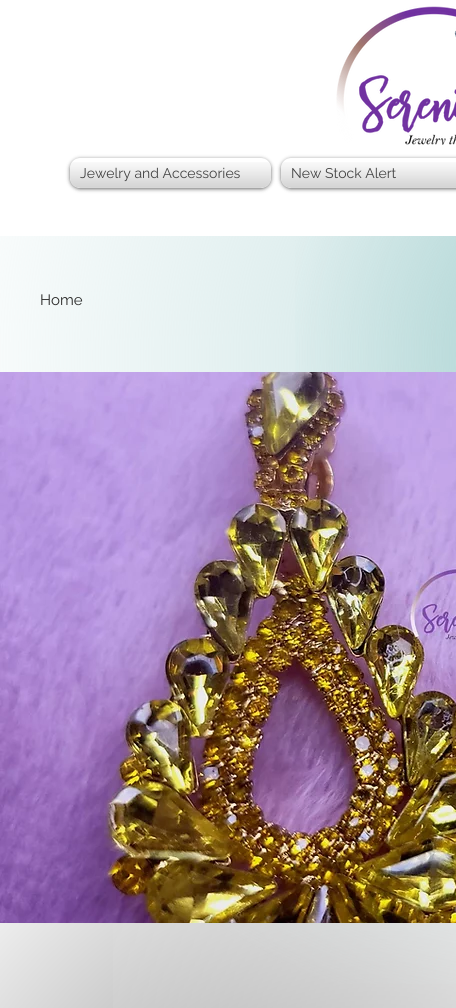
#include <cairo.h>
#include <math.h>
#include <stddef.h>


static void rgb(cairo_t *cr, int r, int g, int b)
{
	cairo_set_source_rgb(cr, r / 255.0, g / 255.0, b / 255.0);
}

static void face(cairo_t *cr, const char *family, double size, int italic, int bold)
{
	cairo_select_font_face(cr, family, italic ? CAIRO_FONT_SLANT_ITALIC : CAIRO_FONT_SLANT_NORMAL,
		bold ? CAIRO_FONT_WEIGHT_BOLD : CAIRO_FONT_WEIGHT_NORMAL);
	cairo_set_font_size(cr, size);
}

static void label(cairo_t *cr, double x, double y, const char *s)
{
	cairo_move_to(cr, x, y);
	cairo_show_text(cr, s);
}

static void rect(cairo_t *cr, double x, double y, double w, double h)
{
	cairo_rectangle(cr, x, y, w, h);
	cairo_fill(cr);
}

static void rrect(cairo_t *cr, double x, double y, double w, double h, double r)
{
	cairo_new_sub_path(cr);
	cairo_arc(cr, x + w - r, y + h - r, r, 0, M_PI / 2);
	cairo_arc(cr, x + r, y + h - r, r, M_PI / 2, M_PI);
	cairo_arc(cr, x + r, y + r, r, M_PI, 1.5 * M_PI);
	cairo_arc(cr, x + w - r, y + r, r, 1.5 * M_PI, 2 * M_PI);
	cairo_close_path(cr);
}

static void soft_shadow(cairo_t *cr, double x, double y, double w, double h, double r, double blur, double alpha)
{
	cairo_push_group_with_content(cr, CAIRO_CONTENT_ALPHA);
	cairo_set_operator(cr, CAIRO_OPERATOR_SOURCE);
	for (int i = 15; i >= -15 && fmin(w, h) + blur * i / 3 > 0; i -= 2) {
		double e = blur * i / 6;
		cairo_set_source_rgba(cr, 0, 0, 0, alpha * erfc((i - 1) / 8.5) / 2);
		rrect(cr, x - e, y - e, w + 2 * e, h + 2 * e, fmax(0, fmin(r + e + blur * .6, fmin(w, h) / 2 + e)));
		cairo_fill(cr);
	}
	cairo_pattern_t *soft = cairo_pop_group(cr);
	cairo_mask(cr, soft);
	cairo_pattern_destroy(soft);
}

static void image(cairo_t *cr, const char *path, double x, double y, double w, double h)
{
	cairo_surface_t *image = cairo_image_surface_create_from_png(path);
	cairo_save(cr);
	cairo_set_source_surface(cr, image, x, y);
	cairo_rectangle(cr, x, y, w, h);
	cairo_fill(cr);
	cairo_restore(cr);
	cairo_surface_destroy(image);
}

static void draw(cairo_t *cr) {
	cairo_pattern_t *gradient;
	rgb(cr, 255, 255, 255);
	cairo_paint(cr);
	image(cr, "image0.png", 336, 6, 120, 139);
	rgb(cr, 0, 0, 0);
	soft_shadow(cr, 70, 159, 201, 30, 10, 2, 0.6);
	rgb(cr, 255, 255, 255);
	rrect(cr, 70, 158, 201, 30, 10);
	cairo_fill(cr);
	image(cr, "image1.png", 70, 162, 201, 26);
	face(cr, "Raleway", 14, 0, 0);
	rgb(cr, 68, 68, 68);
	label(cr, 80, 178, "Jewelry and Accessories");
	rgb(cr, 0, 0, 0);
	soft_shadow(cr, 281, 159, 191, 30, 10, 2, 0.6);
	rgb(cr, 255, 255, 255);
	rrect(cr, 281, 158, 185, 30, 10);
	cairo_fill(cr);
	image(cr, "image2.png", 281, 162, 175, 26);
	rgb(cr, 68, 68, 68);
	label(cr, 291, 178, "New Stock Alert");
	gradient = cairo_pattern_create_radial(380, 1290, 0, 380, 1290, 1213);
	cairo_pattern_add_color_stop_rgba(gradient, 0, 0.447, 0.447, 0.447, 1);
	cairo_pattern_add_color_stop_rgba(gradient, 0.5, 1, 1, 1, 1);
	cairo_set_source(cr, gradient);
	cairo_pattern_destroy(gradient);
	rect(cr, 0, 694, 456, 314);
	gradient = cairo_pattern_create_radial(576, 356, 0, 576, 356, 1126);
	cairo_pattern_add_color_stop_rgba(gradient, 0, 0.784, 0.886, 0.886, 1);
	cairo_pattern_add_color_stop_rgba(gradient, 0.6, 0.784, 0.886, 0.886, 0);
	cairo_set_source(cr, gradient);
	cairo_pattern_destroy(gradient);
	rect(cr, 0, 236, 456, 748);
	gradient = cairo_pattern_create_radial(872, 1121, 0, 872, 1121, 1242);
	cairo_pattern_add_color_stop_rgba(gradient, 0, 1, 1, 1, 1);
	cairo_pattern_add_color_stop_rgba(gradient, 0.65, 1, 1, 1, 0);
	cairo_set_source(cr, gradient);
	cairo_pattern_destroy(gradient);
	rect(cr, 113, 923, 343, 85);
	gradient = cairo_pattern_create_radial(700, 350, 0, 700, 350, 1200);
	cairo_pattern_add_color_stop_rgba(gradient, 0, 0.616, 0.8, 0.796, 1);
	cairo_pattern_add_color_stop_rgba(gradient, 0.35, 0.616, 0.8, 0.796, 0);
	cairo_set_source(cr, gradient);
	cairo_pattern_destroy(gradient);
	rect(cr, 295, 236, 161, 136);
	face(cr, "Raleway", 15, 0, 0);
	rgb(cr, 44, 44, 43);
	label(cr, 40, 305, "Home");
	image(cr, "image3.png", 0, 372, 456, 551);
}

int main(void) {
	cairo_surface_t *surface = cairo_image_surface_create(CAIRO_FORMAT_RGB24, 456, 1008);
	cairo_t *cr = cairo_create(surface);
	cairo_font_options_t *options = cairo_font_options_create();
	cairo_font_options_set_hint_metrics(options, CAIRO_HINT_METRICS_OFF);
	cairo_font_options_set_hint_style(options, CAIRO_HINT_STYLE_NONE);
	cairo_set_font_options(cr, options);
	cairo_set_miter_limit(cr, 4);
	draw(cr);
	cairo_surface_write_to_png(surface, "render.png");
	cairo_font_options_destroy(options);
	cairo_destroy(cr);
	cairo_surface_destroy(surface);
	return 0;
}
